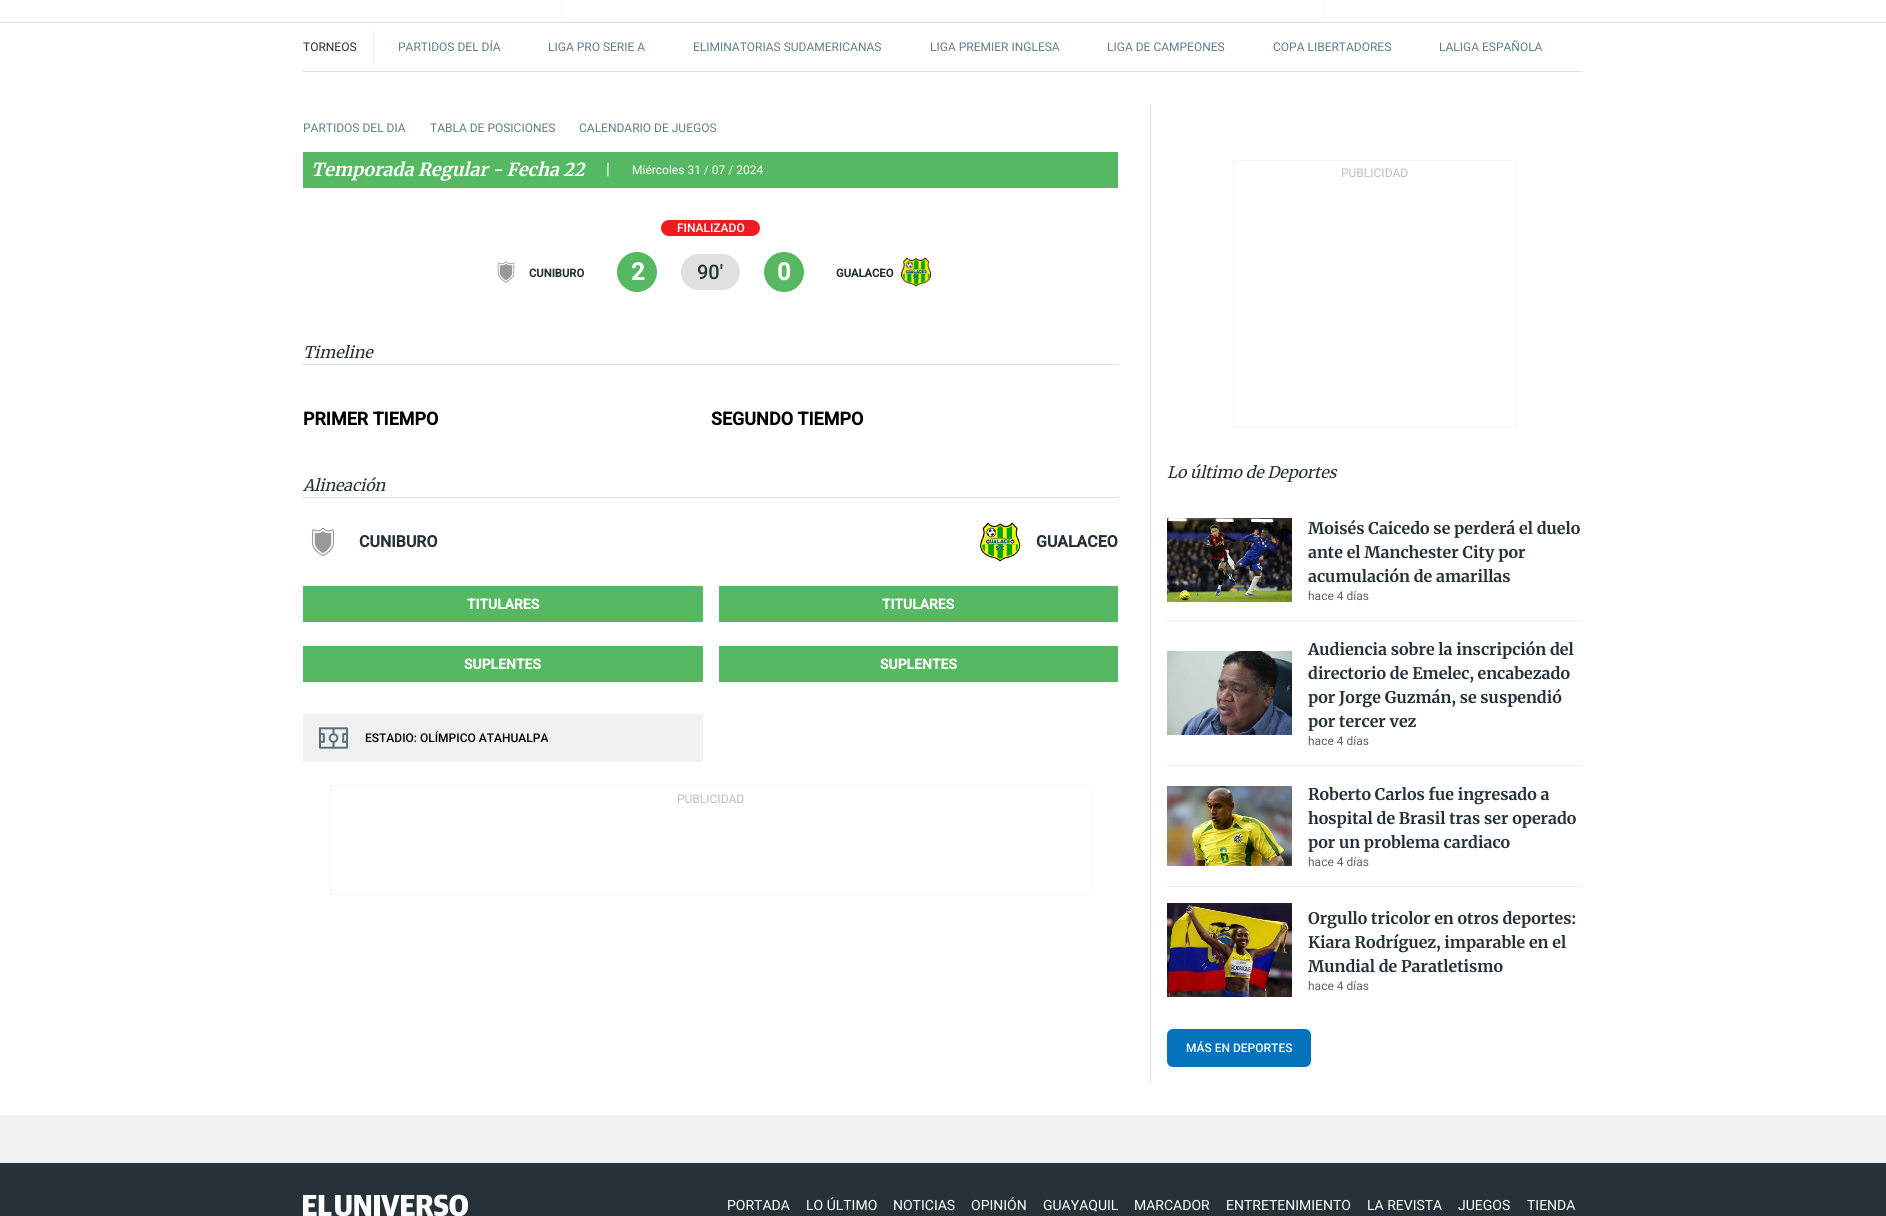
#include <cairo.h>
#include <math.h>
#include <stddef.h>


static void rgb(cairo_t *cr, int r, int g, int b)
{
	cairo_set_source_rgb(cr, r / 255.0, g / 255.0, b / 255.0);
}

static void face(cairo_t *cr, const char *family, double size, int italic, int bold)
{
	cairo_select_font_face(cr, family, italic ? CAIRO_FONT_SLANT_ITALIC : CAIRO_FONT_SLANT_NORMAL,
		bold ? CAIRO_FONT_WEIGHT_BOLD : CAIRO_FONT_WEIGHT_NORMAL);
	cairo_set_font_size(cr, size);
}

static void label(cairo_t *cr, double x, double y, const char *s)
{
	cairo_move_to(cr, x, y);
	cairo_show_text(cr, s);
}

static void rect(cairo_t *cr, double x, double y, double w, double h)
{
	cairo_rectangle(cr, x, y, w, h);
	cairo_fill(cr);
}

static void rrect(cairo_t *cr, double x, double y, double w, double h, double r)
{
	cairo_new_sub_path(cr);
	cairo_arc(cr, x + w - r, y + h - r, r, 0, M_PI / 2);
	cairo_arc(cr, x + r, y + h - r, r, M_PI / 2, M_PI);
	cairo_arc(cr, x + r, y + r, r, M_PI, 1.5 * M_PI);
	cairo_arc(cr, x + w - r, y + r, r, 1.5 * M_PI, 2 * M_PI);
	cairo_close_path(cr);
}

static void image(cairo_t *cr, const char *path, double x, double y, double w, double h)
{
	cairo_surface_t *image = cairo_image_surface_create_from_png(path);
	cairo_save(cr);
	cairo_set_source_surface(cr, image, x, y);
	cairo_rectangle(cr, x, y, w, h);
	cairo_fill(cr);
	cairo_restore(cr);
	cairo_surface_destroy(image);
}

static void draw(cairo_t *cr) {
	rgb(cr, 255, 255, 255);
	cairo_paint(cr);
	rgb(cr, 224, 224, 224);
	rect(cr, 0, 22, 1886, 1);
	cairo_rectangle(cr, 562.5, -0.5, 761, 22);
	rgb(cr, 245, 245, 245);
	cairo_set_line_width(cr, 1);
	cairo_stroke(cr);
	rgb(cr, 236, 239, 241);
	rect(cr, 373, 31, 1, 32);
	face(cr, "Roboto", 12, 0, 0);
	rgb(cr, 38, 50, 56);
	label(cr, 303, 51, "TORNEOS");
	rgb(cr, 96, 125, 139);
	label(cr, 398, 51, "PARTIDOS DEL DÍA");
	label(cr, 548, 51, "LIGA PRO SERIE A");
	label(cr, 693, 51, "ELIMINATORIAS SUDAMERICANAS");
	label(cr, 930, 51, "LIGA PREMIER INGLESA");
	label(cr, 1107, 51, "LIGA DE CAMPEONES");
	label(cr, 1273, 51, "COPA LIBERTADORES");
	label(cr, 1439, 51, "LALIGA ESPAÑOLA");
	rgb(cr, 224, 224, 224);
	rect(cr, 303, 71, 1280, 1);
	rect(cr, 1150, 104, 1, 979);
	rgb(cr, 96, 125, 139);
	label(cr, 303, 132, "PARTIDOS DEL DIA");
	label(cr, 430, 132, "TABLA DE POSICIONES");
	label(cr, 579, 132, "CALENDARIO DE JUEGOS");
	rgb(cr, 86, 184, 98);
	rect(cr, 303, 152, 815, 36);
	face(cr, "Merriweather", 18, 1, 1);
	rgb(cr, 255, 255, 255);
	label(cr, 311, 176, "Temporada Regular - Fecha 22");
	face(cr, "Merriweather", 14, 0, 0);
	label(cr, 605, 175, "|");
	face(cr, "Roboto", 12, 0, 0);
	label(cr, 632, 174, "Miércoles 31 / 07 / 2024");
	rgb(cr, 237, 28, 35);
	rrect(cr, 661, 220, 99, 16, 8);
	cairo_fill(cr);
	face(cr, "Roboto Medium", 12, 0, 0);
	rgb(cr, 255, 255, 255);
	label(cr, 677, 232, "FINALIZADO");
	image(cr, "image0.png", 497, 261, 18, 22);
	face(cr, "Roboto", 11.25, 0, 1);
	rgb(cr, 38, 50, 56);
	label(cr, 529, 277, "CUNIBURO");
	rgb(cr, 86, 184, 98);
	cairo_new_path(cr);
	cairo_arc(cr, 637, 272, 20, 0, 2 * M_PI);
	cairo_fill(cr);
	face(cr, "Roboto", 24, 0, 1);
	rgb(cr, 255, 255, 255);
	label(cr, 631, 280, "2");
	rgb(cr, 224, 224, 224);
	rrect(cr, 681, 254, 59, 36, 18);
	cairo_fill(cr);
	face(cr, "Roboto Medium", 20, 0, 0);
	rgb(cr, 38, 50, 56);
	label(cr, 697, 279, "90'");
	rgb(cr, 86, 184, 98);
	cairo_new_path(cr);
	cairo_arc(cr, 784, 272, 20, 0, 2 * M_PI);
	cairo_fill(cr);
	face(cr, "Roboto", 24, 0, 1);
	rgb(cr, 255, 255, 255);
	label(cr, 777, 280, "0");
	face(cr, "Roboto", 11.25, 0, 1);
	rgb(cr, 38, 50, 56);
	label(cr, 836, 277, "GUALACEO");
	image(cr, "image1.png", 901, 257, 30, 30);
	rgb(cr, 224, 224, 224);
	rect(cr, 303, 364, 815, 1);
	face(cr, "Merriweather", 16, 1, 0);
	rgb(cr, 38, 50, 56);
	label(cr, 303, 358, "Timeline");
	face(cr, "Roboto", 18, 0, 1);
	rgb(cr, 0, 0, 0);
	label(cr, 303, 425, "PRIMER TIEMPO");
	label(cr, 711, 425, "SEGUNDO TIEMPO");
	rgb(cr, 224, 224, 224);
	rect(cr, 303, 497, 815, 1);
	face(cr, "Merriweather", 16, 1, 0);
	rgb(cr, 38, 50, 56);
	label(cr, 303, 491, "Alineación");
	image(cr, "image2.png", 311, 527, 24, 29);
	face(cr, "Roboto", 16, 0, 1);
	label(cr, 359, 547, "CUNIBURO");
	rgb(cr, 86, 184, 98);
	rect(cr, 303, 586, 400, 36);
	face(cr, "Roboto", 14, 0, 1);
	rgb(cr, 255, 255, 255);
	label(cr, 467, 609, "TITULARES");
	rgb(cr, 86, 184, 98);
	rect(cr, 303, 646, 400, 36);
	rgb(cr, 255, 255, 255);
	label(cr, 464, 669, "SUPLENTES");
	image(cr, "image3.png", 980, 522, 40, 40);
	face(cr, "Roboto", 16, 0, 1);
	rgb(cr, 38, 50, 56);
	label(cr, 1036, 547, "GUALACEO");
	rgb(cr, 86, 184, 98);
	rect(cr, 719, 586, 399, 36);
	face(cr, "Roboto", 14, 0, 1);
	rgb(cr, 255, 255, 255);
	label(cr, 882, 609, "TITULARES");
	rgb(cr, 86, 184, 98);
	rect(cr, 719, 646, 399, 36);
	rgb(cr, 255, 255, 255);
	label(cr, 880, 669, "SUPLENTES");
	rgb(cr, 241, 241, 241);
	rect(cr, 303, 714, 400, 48);
	image(cr, "image4.png", 319, 727, 29, 22);
	face(cr, "Roboto Medium", 12, 0, 0);
	rgb(cr, 0, 0, 0);
	label(cr, 365, 742, "ESTADIO: OLÍMPICO ATAHUALPA");
	cairo_rectangle(cr, 330.5, 786.5, 761, 107);
	rgb(cr, 245, 245, 245);
	cairo_stroke(cr);
	face(cr, "Roboto", 12, 0, 0);
	rgb(cr, 189, 189, 189);
	label(cr, 677, 803, "PUBLICIDAD");
	cairo_rectangle(cr, 1233.5, 160.5, 283, 267);
	rgb(cr, 245, 245, 245);
	cairo_stroke(cr);
	rgb(cr, 189, 189, 189);
	label(cr, 1341, 177, "PUBLICIDAD");
	face(cr, "Merriweather", 16, 1, 0);
	rgb(cr, 38, 50, 56);
	label(cr, 1167, 478, "Lo último de Deportes");
	image(cr, "image5.png", 1167, 518, 125, 84);
	face(cr, "Merriweather", 16, 0, 1);
	label(cr, 1308, 534, "Moisés Caicedo se perderá el duelo");
	label(cr, 1308, 558, "ante el Manchester City por");
	label(cr, 1308, 582, "acumulación de amarillas");
	face(cr, "Roboto", 12, 0, 0);
	rgb(cr, 97, 97, 97);
	label(cr, 1308, 600, "hace 4 días");
	rgb(cr, 238, 238, 238);
	rect(cr, 1167, 620, 416, 1);
	image(cr, "image6.png", 1167, 651, 125, 84);
	face(cr, "Merriweather", 16, 0, 1);
	rgb(cr, 38, 50, 56);
	label(cr, 1308, 655, "Audiencia sobre la inscripción del");
	label(cr, 1308, 679, "directorio de Emelec, encabezado");
	label(cr, 1308, 703, "por Jorge Guzmán, se suspendió");
	label(cr, 1308, 727, "por tercer vez");
	face(cr, "Roboto", 12, 0, 0);
	rgb(cr, 97, 97, 97);
	label(cr, 1308, 745, "hace 4 días");
	rgb(cr, 238, 238, 238);
	rect(cr, 1167, 765, 416, 1);
	image(cr, "image7.png", 1167, 786, 125, 80);
	face(cr, "Merriweather", 16, 0, 1);
	rgb(cr, 38, 50, 56);
	label(cr, 1308, 800, "Roberto Carlos fue ingresado a");
	label(cr, 1308, 824, "hospital de Brasil tras ser operado");
	label(cr, 1308, 848, "por un problema cardiaco");
	face(cr, "Roboto", 12, 0, 0);
	rgb(cr, 97, 97, 97);
	label(cr, 1308, 866, "hace 4 días");
	rgb(cr, 238, 238, 238);
	rect(cr, 1167, 886, 416, 1);
	image(cr, "image8.png", 1167, 903, 125, 94);
	face(cr, "Merriweather", 16, 0, 1);
	rgb(cr, 38, 50, 56);
	label(cr, 1308, 924, "Orgullo tricolor en otros deportes:");
	label(cr, 1308, 948, "Kiara Rodríguez, imparable en el");
	label(cr, 1308, 972, "Mundial de Paratletismo");
	face(cr, "Roboto", 12, 0, 0);
	rgb(cr, 97, 97, 97);
	label(cr, 1308, 990, "hace 4 días");
	rgb(cr, 3, 116, 187);
	rrect(cr, 1168.5, 1030.5, 141, 35, 4.5);
	cairo_fill_preserve(cr);
	cairo_set_line_width(cr, 3);
	cairo_stroke(cr);
	face(cr, "Roboto Medium", 12, 0, 0);
	rgb(cr, 255, 255, 255);
	label(cr, 1186, 1052, "MÁS EN DEPORTES");
	rgb(cr, 241, 241, 241);
	rect(cr, 0, 1115, 1886, 48);
	rgb(cr, 38, 50, 56);
	rect(cr, 0, 1163, 1886, 53);
	image(cr, "image9.png", 303, 1194, 165, 22);
	face(cr, "Roboto", 14, 0, 0);
	rgb(cr, 255, 255, 255);
	label(cr, 727, 1210, "PORTADA");
	label(cr, 806, 1210, "LO ÚLTIMO");
	label(cr, 893, 1210, "NOTICIAS");
	label(cr, 971, 1210, "OPINIÓN");
	label(cr, 1043, 1210, "GUAYAQUIL");
	label(cr, 1134, 1210, "MARCADOR");
	label(cr, 1226, 1210, "ENTRETENIMIENTO");
	label(cr, 1367, 1210, "LA REVISTA");
	label(cr, 1458, 1210, "JUEGOS");
	label(cr, 1527, 1210, "TIENDA");
}

int main(void) {
	cairo_surface_t *surface = cairo_image_surface_create(CAIRO_FORMAT_RGB24, 1886, 1216);
	cairo_t *cr = cairo_create(surface);
	cairo_font_options_t *options = cairo_font_options_create();
	cairo_font_options_set_hint_metrics(options, CAIRO_HINT_METRICS_OFF);
	cairo_font_options_set_hint_style(options, CAIRO_HINT_STYLE_NONE);
	cairo_set_font_options(cr, options);
	cairo_set_miter_limit(cr, 4);
	draw(cr);
	cairo_surface_write_to_png(surface, "render.png");
	cairo_font_options_destroy(options);
	cairo_destroy(cr);
	cairo_surface_destroy(surface);
	return 0;
}
